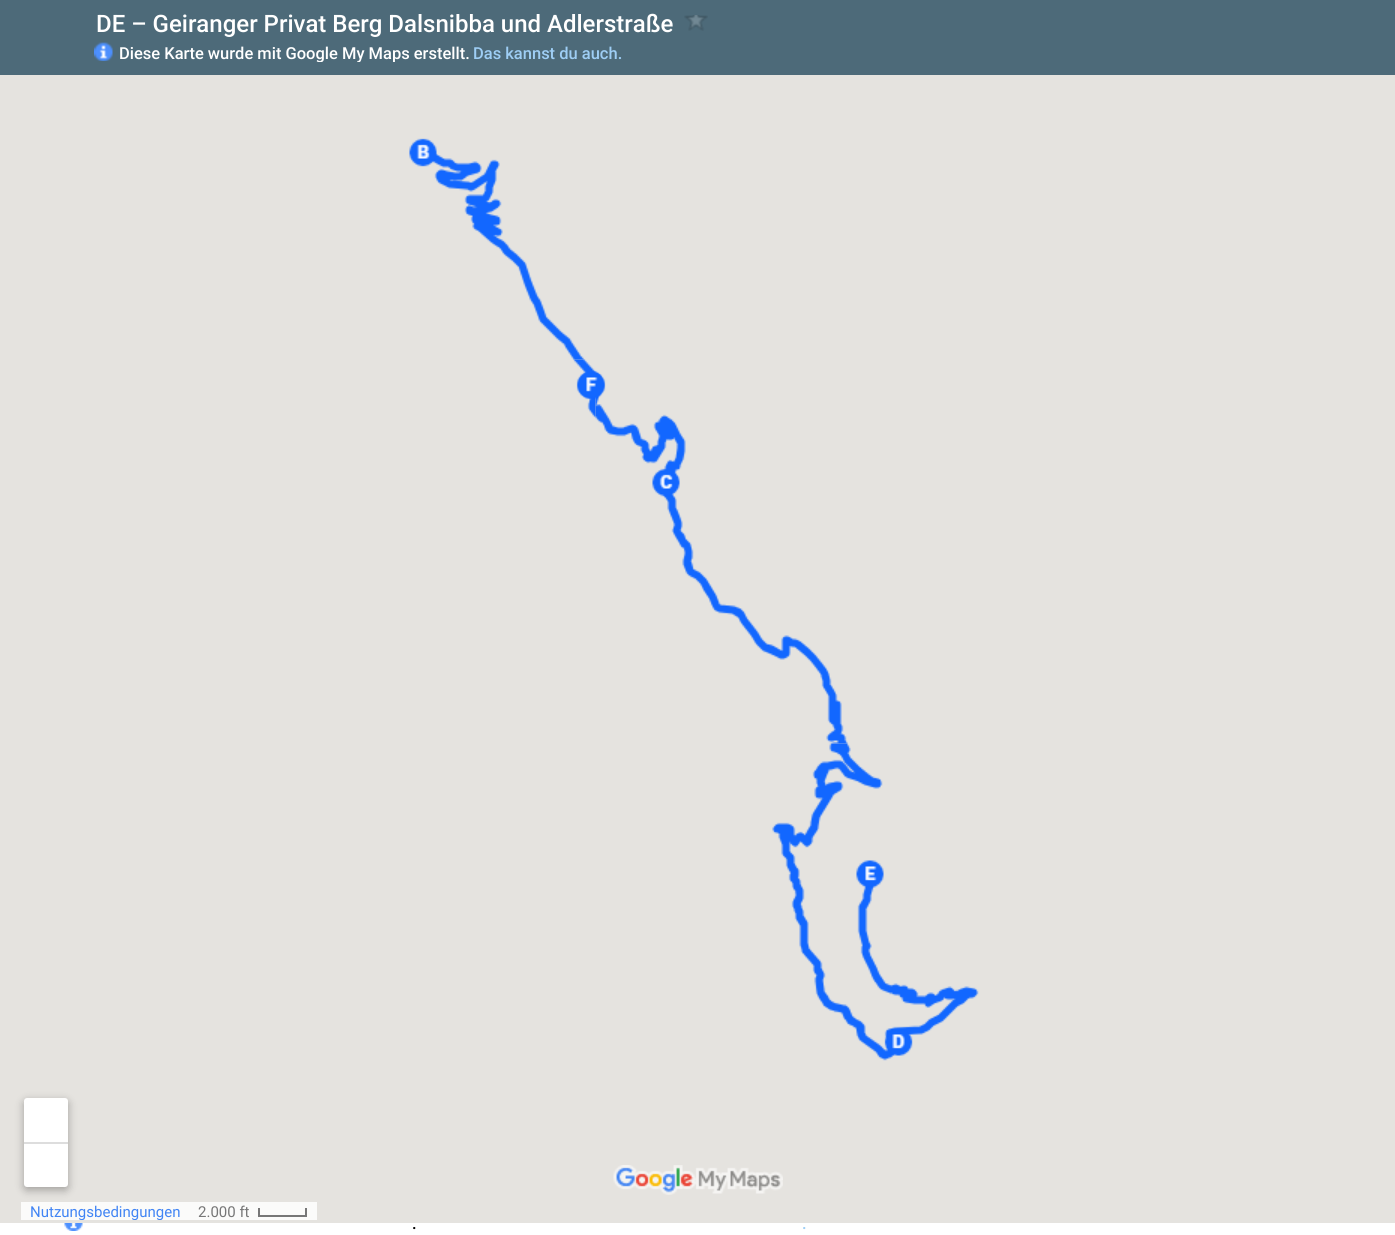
#include <cairo.h>
#include <math.h>
#include <stddef.h>


static void rgb(cairo_t *cr, int r, int g, int b)
{
	cairo_set_source_rgb(cr, r / 255.0, g / 255.0, b / 255.0);
}

static void face(cairo_t *cr, const char *family, double size, int italic, int bold)
{
	cairo_select_font_face(cr, family, italic ? CAIRO_FONT_SLANT_ITALIC : CAIRO_FONT_SLANT_NORMAL,
		bold ? CAIRO_FONT_WEIGHT_BOLD : CAIRO_FONT_WEIGHT_NORMAL);
	cairo_set_font_size(cr, size);
}

static void label(cairo_t *cr, double x, double y, const char *s)
{
	cairo_move_to(cr, x, y);
	cairo_show_text(cr, s);
}

static void rect(cairo_t *cr, double x, double y, double w, double h)
{
	cairo_rectangle(cr, x, y, w, h);
	cairo_fill(cr);
}

static void rrect(cairo_t *cr, double x, double y, double w, double h, double r)
{
	cairo_new_sub_path(cr);
	cairo_arc(cr, x + w - r, y + h - r, r, 0, M_PI / 2);
	cairo_arc(cr, x + r, y + h - r, r, M_PI / 2, M_PI);
	cairo_arc(cr, x + r, y + r, r, M_PI, 1.5 * M_PI);
	cairo_arc(cr, x + w - r, y + r, r, 1.5 * M_PI, 2 * M_PI);
	cairo_close_path(cr);
}

static void soft_shadow(cairo_t *cr, double x, double y, double w, double h, double r, double blur, double alpha)
{
	cairo_push_group_with_content(cr, CAIRO_CONTENT_ALPHA);
	cairo_set_operator(cr, CAIRO_OPERATOR_SOURCE);
	for (int i = 15; i >= -15 && fmin(w, h) + blur * i / 3 > 0; i -= 2) {
		double e = blur * i / 6;
		cairo_set_source_rgba(cr, 0, 0, 0, alpha * erfc((i - 1) / 8.5) / 2);
		rrect(cr, x - e, y - e, w + 2 * e, h + 2 * e, fmax(0, fmin(r + e + blur * .6, fmin(w, h) / 2 + e)));
		cairo_fill(cr);
	}
	cairo_pattern_t *soft = cairo_pop_group(cr);
	cairo_mask(cr, soft);
	cairo_pattern_destroy(soft);
}

static void image(cairo_t *cr, const char *path, double x, double y, double w, double h)
{
	cairo_surface_t *image = cairo_image_surface_create_from_png(path);
	cairo_save(cr);
	cairo_set_source_surface(cr, image, x, y);
	cairo_rectangle(cr, x, y, w, h);
	cairo_fill(cr);
	cairo_restore(cr);
	cairo_surface_destroy(image);
}

static void draw(cairo_t *cr) {
	rgb(cr, 255, 255, 255);
	cairo_paint(cr);
	rgb(cr, 77, 106, 121);
	rect(cr, 0, 0, 1395, 75);
	face(cr, "Roboto Medium", 24, 0, 0);
	rgb(cr, 255, 255, 255);
	label(cr, 96, 32, "DE – Geiranger Privat Berg Dalsnibba und Adlerstraße");
	image(cr, "image0.png", 684, 15, 24, 16);
	image(cr, "image1.png", 94, 42, 19, 19);
	cairo_save(cr);
	cairo_rectangle(cr, 30, 3, 1160, 59);
	cairo_clip(cr);
	face(cr, "Roboto Medium", 16.5, 0, 0);
	label(cr, 119, 59, "Diese Karte wurde mit Google My Maps erstellt.");
	cairo_restore(cr);
	face(cr, "Roboto Medium", 16.5, 0, 0);
	rgb(cr, 158, 206, 245);
	label(cr, 473, 59, "Das kannst du auch.");
	rgb(cr, 229, 227, 223);
	rect(cr, 0, 75, 1395, 1148);
	image(cr, "image9.png", 573, 359, 23, 59);
	image(cr, "image8.png", 430, 152, 155, 208);
	image(cr, "image2.png", 409, 138, 28, 29);
	image(cr, "image11.png", 772, 743, 207, 318);
	image(cr, "image10.png", 595, 371, 253, 373);
	image(cr, "image3.png", 576, 370, 30, 30);
	image(cr, "image4.png", 577, 371, 28, 28);
	image(cr, "image5.png", 652, 468, 28, 29);
	image(cr, "image6.png", 856, 860, 28, 28);
	image(cr, "image7.png", 884, 1028, 29, 28);
	rgb(cr, 0, 0, 0);
	soft_shadow(cr, 24, 1101, 44, 89, 3, 4.5, 0.3);
	rgb(cr, 255, 255, 255);
	rrect(cr, 24, 1098, 44, 89, 3);
	cairo_fill(cr);
	rgb(cr, 221, 221, 221);
	rect(cr, 24, 1142, 44, 2);
	image(cr, "image12.png", 613, 1165, 170, 30);
	rgb(cr, 251, 251, 250);
	rect(cr, 21, 1202, 296, 18);
	cairo_save(cr);
	cairo_rectangle(cr, 3, 1202, 1392, 18);
	cairo_clip(cr);
	face(cr, "Roboto", 15, 0, 0);
	rgb(cr, 66, 133, 244);
	label(cr, 30, 1217, "Nutzungsbedingungen");
	cairo_restore(cr);
	face(cr, "Roboto", 15, 0, 0);
	rgb(cr, 119, 119, 119);
	label(cr, 198, 1217, "2.000 ft");
	rect(cr, 258, 1215, 48, 2);
	rect(cr, 258, 1208, 2, 9);
	rect(cr, 305, 1208, 2, 9);
	image(cr, "image13.png", 64, 1223, 19, 8);
	face(cr, "Roboto Medium", 16.5, 0, 0);
	rgb(cr, 0, 0, 0);
	label(cr, 412, 1229, ".");
	rgb(cr, 158, 206, 245);
	label(cr, 802, 1229, ".");
}

int main(void) {
	cairo_surface_t *surface = cairo_image_surface_create(CAIRO_FORMAT_RGB24, 1395, 1235);
	cairo_t *cr = cairo_create(surface);
	cairo_font_options_t *options = cairo_font_options_create();
	cairo_font_options_set_hint_metrics(options, CAIRO_HINT_METRICS_OFF);
	cairo_font_options_set_hint_style(options, CAIRO_HINT_STYLE_NONE);
	cairo_set_font_options(cr, options);
	cairo_set_miter_limit(cr, 4);
	draw(cr);
	cairo_surface_write_to_png(surface, "render.png");
	cairo_font_options_destroy(options);
	cairo_destroy(cr);
	cairo_surface_destroy(surface);
	return 0;
}
